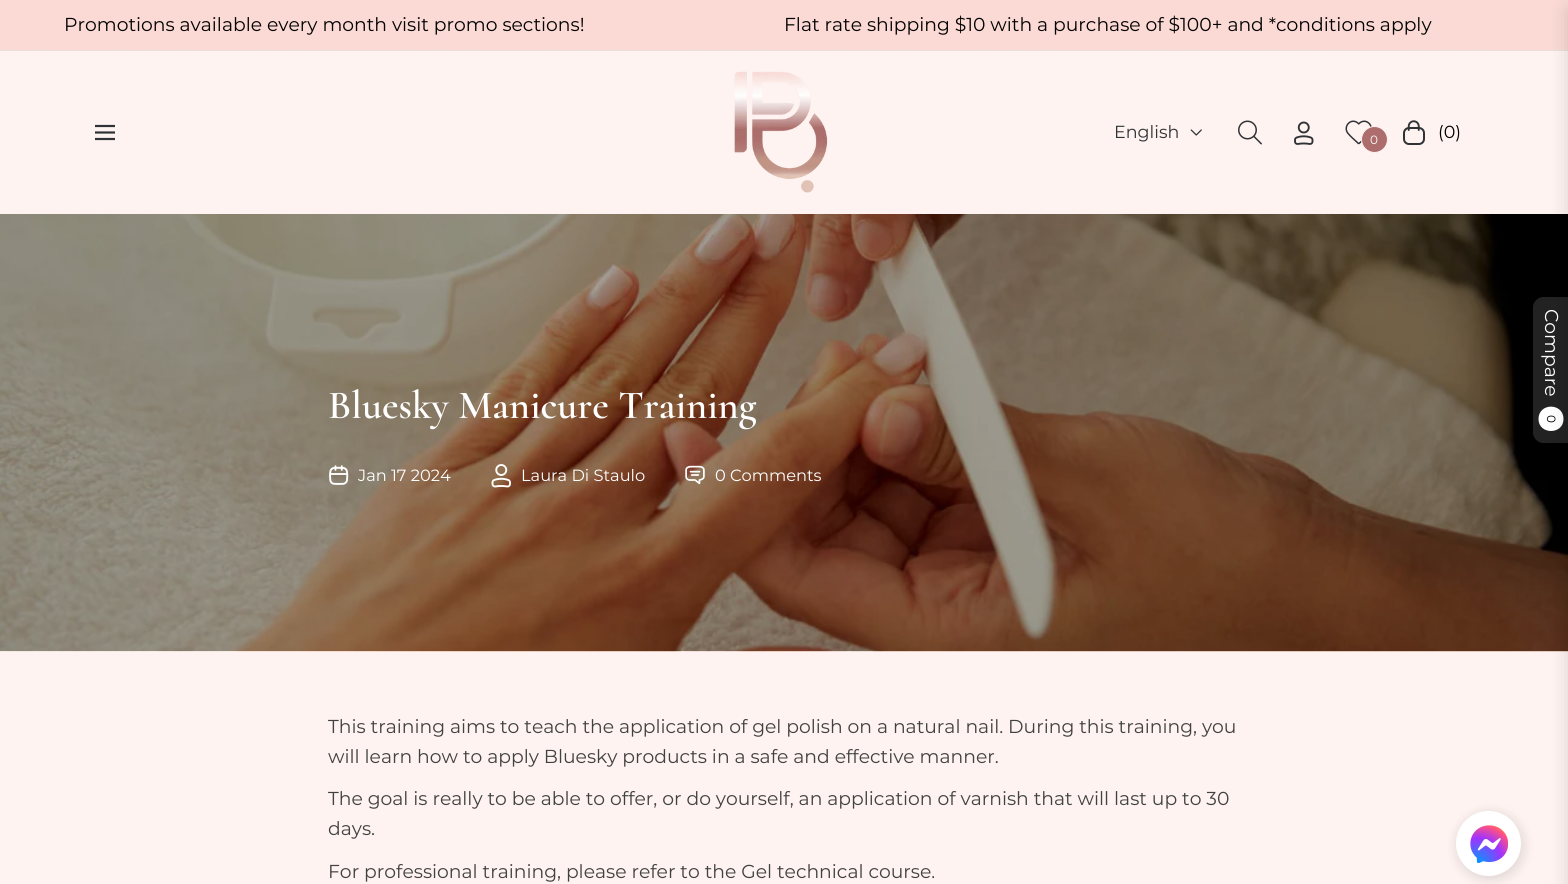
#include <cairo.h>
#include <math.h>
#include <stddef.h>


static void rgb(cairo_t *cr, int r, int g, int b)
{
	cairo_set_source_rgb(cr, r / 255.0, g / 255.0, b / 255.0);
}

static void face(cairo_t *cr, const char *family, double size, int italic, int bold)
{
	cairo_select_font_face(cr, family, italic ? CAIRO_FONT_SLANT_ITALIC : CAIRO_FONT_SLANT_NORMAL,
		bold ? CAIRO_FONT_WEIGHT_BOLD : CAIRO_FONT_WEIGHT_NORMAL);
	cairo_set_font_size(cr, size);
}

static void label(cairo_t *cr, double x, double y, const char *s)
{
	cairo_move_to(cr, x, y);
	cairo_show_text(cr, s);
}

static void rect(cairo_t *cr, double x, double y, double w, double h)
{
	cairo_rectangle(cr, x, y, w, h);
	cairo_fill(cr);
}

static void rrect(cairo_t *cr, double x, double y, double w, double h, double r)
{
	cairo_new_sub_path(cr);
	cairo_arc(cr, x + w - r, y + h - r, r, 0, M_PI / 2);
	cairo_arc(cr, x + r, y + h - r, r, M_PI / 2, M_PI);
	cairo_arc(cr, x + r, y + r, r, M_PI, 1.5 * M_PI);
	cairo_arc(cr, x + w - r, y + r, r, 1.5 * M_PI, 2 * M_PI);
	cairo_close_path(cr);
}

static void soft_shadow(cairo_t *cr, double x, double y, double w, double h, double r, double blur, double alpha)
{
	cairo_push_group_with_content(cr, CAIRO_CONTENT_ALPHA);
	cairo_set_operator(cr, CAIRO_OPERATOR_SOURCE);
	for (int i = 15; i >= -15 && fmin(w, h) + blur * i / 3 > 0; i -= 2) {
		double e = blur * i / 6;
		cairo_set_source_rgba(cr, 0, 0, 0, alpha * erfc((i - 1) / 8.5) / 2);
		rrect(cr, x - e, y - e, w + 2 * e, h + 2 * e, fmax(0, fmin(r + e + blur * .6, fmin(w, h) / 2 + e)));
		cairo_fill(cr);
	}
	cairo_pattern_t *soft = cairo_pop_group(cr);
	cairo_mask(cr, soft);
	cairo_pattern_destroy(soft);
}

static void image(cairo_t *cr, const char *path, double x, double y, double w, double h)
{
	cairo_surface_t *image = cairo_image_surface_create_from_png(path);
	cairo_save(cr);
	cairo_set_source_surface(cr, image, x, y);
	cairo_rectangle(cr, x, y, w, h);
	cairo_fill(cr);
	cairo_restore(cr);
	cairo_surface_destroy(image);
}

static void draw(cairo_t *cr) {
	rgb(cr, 254, 243, 240);
	cairo_paint(cr);
	rgb(cr, 251, 218, 213);
	rect(cr, 0, 0, 1568, 51);
	cairo_new_path(cr);
	cairo_move_to(cr, 0, 50.5);
	cairo_line_to(cr, 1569, 50.5);
	rgb(cr, 225, 225, 225);
	cairo_set_line_width(cr, 1.2);
	cairo_set_dash(cr, (double[]){3.75, 2.51}, 2, 0);
	cairo_stroke(cr);
	face(cr, "Montserrat", 18.75, 0, 0);
	rgb(cr, 0, 0, 0);
	label(cr, 64, 31, "Promotions available every month visit promo sections!");
	label(cr, 784, 31, "Flat rate shipping $10 with a purchase of $100+ and *conditions apply");
	rgb(cr, 254, 243, 240);
	rect(cr, 0, 51, 1568, 1);
	cairo_new_path(cr);
	cairo_move_to(cr, 95, 126);
	cairo_line_to(cr, 115, 126);
	cairo_move_to(cr, 95, 139);
	cairo_line_to(cr, 115, 139);
	cairo_close_path(cr);
	cairo_move_to(cr, 95, 132.5);
	cairo_line_to(cr, 115, 132.5);
	cairo_close_path(cr);
	rgb(cr, 47, 51, 54);
	cairo_set_line_width(cr, 2.2);
	cairo_set_dash(cr, NULL, 0, 0);
	cairo_stroke(cr);
	image(cr, "image0.png", 734, 71, 94, 122);
	face(cr, "Montserrat", 17.5, 0, 0);
	label(cr, 1114, 138, "English");
	image(cr, "image1.png", 1190, 129, 12, 7);
	image(cr, "image2.png", 1238, 120, 24, 25);
	image(cr, "image3.png", 1294, 121, 20, 24);
	image(cr, "image4.png", 1345, 120, 27, 25);
	rgb(cr, 173, 109, 108);
	cairo_arc(cr, 1374.5, 139.5, 13, 0, 2 * M_PI);
	cairo_fill_preserve(cr);
	rgb(cr, 254, 243, 240);
	cairo_set_line_width(cr, 1);
	cairo_stroke(cr);
	face(cr, "Montserrat", 12, 0, 0);
	rgb(cr, 255, 255, 255);
	label(cr, 1370, 144, "0");
	image(cr, "image5.png", 1403, 120, 22, 25);
	face(cr, "Montserrat", 17.5, 0, 0);
	rgb(cr, 0, 0, 0);
	label(cr, 1438, 138, "(0)");
	image(cr, "image6.png", 0, 214, 1568, 438);
	rgb(cr, 34, 34, 34);
	cairo_new_path(cr);
	cairo_move_to(cr, 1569, 297);
	cairo_line_to(cr, 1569, 443);
	cairo_line_to(cr, 1543, 443);
	cairo_curve_to(cr, 1538, 443, 1533, 438, 1533, 433);
	cairo_line_to(cr, 1533, 307);
	cairo_curve_to(cr, 1533, 302, 1538, 297, 1543, 297);
	cairo_close_path(cr);
	cairo_fill(cr);
	rgb(cr, 255, 255, 255);
	cairo_new_path(cr);
	cairo_move_to(cr, 1563.5, 419);
	cairo_curve_to(cr, 1563.5, 435, 1538.5, 435, 1538.5, 419);
	cairo_curve_to(cr, 1538.5, 402.5, 1563.5, 402.5, 1563.5, 419);
	cairo_close_path(cr);
	cairo_fill(cr);
	rgb(cr, 0, 0, 0);
	soft_shadow(cr, 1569, 10, 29, 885, 0, 10, 0.15);
	face(cr, "Montserrat", 18.75, 0, 0);
	rgb(cr, 255, 255, 255);
	cairo_save(cr);
	cairo_translate(cr, 1545, 309);
	cairo_rotate(cr, 90 * M_PI / 180);
	label(cr, 0, 0, "Compare");
	cairo_restore(cr);
	face(cr, "Montserrat", 12, 0, 0);
	rgb(cr, 0, 0, 0);
	cairo_save(cr);
	cairo_translate(cr, 1547, 415);
	cairo_rotate(cr, 90 * M_PI / 180);
	label(cr, 0, 0, "0");
	cairo_restore(cr);
	face(cr, "Cormorant SemiBold", 40, 0, 0);
	rgb(cr, 255, 255, 255);
	label(cr, 328, 418, "Bluesky Manicure Training");
	image(cr, "image7.png", 329, 465, 20, 20);
	face(cr, "Montserrat", 16.25, 0, 0);
	label(cr, 358, 481, "Jan 17 2024");
	image(cr, "image8.png", 491, 464, 20, 24);
	label(cr, 521, 481, "Laura Di Staulo");
	image(cr, "image9.png", 685, 465, 20, 20);
	label(cr, 715, 481, "0 Comments");
	face(cr, "Montserrat", 18.75, 0, 0);
	rgb(cr, 65, 65, 65);
	label(cr, 328, 733, "This training aims to teach the application of gel polish on a natural nail. During this training, you");
	label(cr, 328, 763, "will learn how to apply Bluesky products in a safe and effective manner.");
	label(cr, 328, 805, "The goal is really to be able to offer, or do yourself, an application of varnish that will last up to 30");
	label(cr, 328, 835, "days.");
	label(cr, 328, 878, "For professional training, please refer to the Gel technical course.");
	rgb(cr, 0, 0, 0);
	soft_shadow(cr, 1456, 814, 65, 65, 32.5, 6, 0.05);
	soft_shadow(cr, 1456, 811, 70, 70, 35, 5.5, 0.07);
	image(cr, "image10.png", 1456, 811, 65, 65);
}

int main(void) {
	cairo_surface_t *surface = cairo_image_surface_create(CAIRO_FORMAT_RGB24, 1568, 884);
	cairo_t *cr = cairo_create(surface);
	cairo_font_options_t *options = cairo_font_options_create();
	cairo_font_options_set_hint_metrics(options, CAIRO_HINT_METRICS_OFF);
	cairo_font_options_set_hint_style(options, CAIRO_HINT_STYLE_NONE);
	cairo_set_font_options(cr, options);
	cairo_set_miter_limit(cr, 4);
	draw(cr);
	cairo_surface_write_to_png(surface, "render.png");
	cairo_font_options_destroy(options);
	cairo_destroy(cr);
	cairo_surface_destroy(surface);
	return 0;
}
